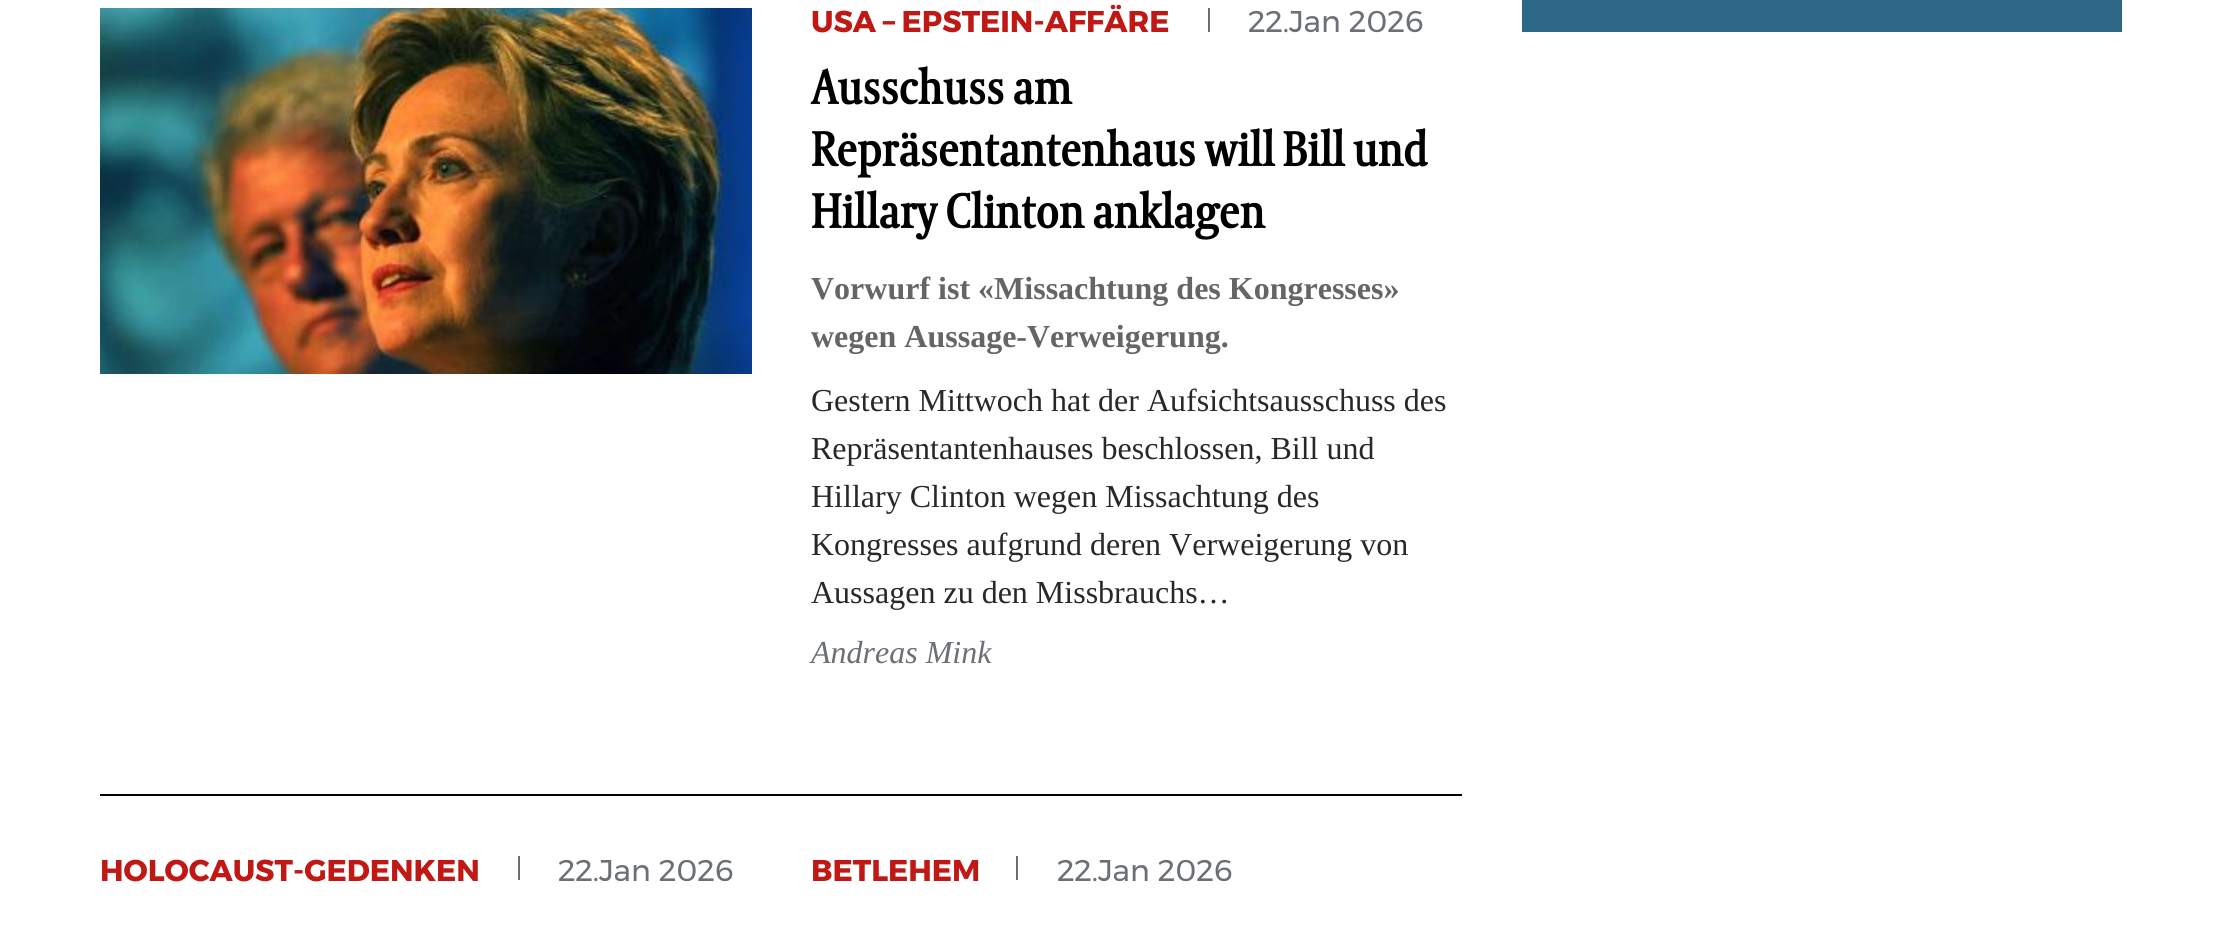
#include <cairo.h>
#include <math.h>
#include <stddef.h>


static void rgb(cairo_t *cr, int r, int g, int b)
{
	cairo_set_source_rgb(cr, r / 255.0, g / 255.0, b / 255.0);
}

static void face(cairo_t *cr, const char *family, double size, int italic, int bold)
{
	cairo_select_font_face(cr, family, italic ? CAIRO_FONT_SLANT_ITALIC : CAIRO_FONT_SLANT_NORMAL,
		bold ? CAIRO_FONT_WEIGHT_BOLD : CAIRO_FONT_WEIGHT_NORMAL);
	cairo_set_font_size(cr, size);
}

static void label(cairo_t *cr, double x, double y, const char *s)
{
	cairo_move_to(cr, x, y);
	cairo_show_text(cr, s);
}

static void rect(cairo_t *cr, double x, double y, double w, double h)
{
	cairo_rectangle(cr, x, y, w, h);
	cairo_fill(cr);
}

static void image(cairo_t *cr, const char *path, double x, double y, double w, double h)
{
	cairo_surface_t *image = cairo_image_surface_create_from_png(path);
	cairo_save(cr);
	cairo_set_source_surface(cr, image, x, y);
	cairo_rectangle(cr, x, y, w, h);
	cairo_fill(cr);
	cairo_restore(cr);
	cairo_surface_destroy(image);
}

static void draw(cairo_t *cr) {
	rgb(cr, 255, 255, 255);
	cairo_paint(cr);
	image(cr, "image0.png", 100, 8, 652, 366);
	face(cr, "Montserrat", 30, 0, 1);
	rgb(cr, 192, 24, 20);
	label(cr, 811, 32, "USA – EPSTEIN-AFFÄRE");
	rgb(cr, 107, 112, 118);
	rect(cr, 1208, 8, 2, 24);
	face(cr, "Montserrat", 30, 0, 0);
	label(cr, 1248, 32, "22.Jan 2026");
	face(cr, "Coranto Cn", 48, 0, 1);
	rgb(cr, 0, 0, 0);
	label(cr, 811, 104, "Ausschuss am");
	label(cr, 811, 166, "Repräsentantenhaus will Bill und");
	label(cr, 811, 228, "Hillary Clinton anklagen");
	face(cr, "Liberation Serif", 32, 0, 1);
	rgb(cr, 101, 101, 101);
	label(cr, 811, 299, "Vorwurf ist «Missachtung des Kongresses»");
	label(cr, 811, 347, "wegen Aussage-Verweigerung.");
	face(cr, "Liberation Serif", 32, 0, 0);
	rgb(cr, 40, 40, 40);
	label(cr, 811, 411, "Gestern Mittwoch hat der Aufsichtsausschuss des");
	label(cr, 811, 459, "Repräsentantenhauses beschlossen, Bill und");
	label(cr, 811, 507, "Hillary Clinton wegen Missachtung des");
	label(cr, 811, 555, "Kongresses aufgrund deren Verweigerung von");
	label(cr, 811, 603, "Aussagen zu den Missbrauchs…");
	face(cr, "Liberation Serif", 32, 1, 0);
	rgb(cr, 107, 112, 118);
	label(cr, 811, 663, "Andreas Mink");
	rgb(cr, 0, 0, 0);
	rect(cr, 100, 794, 1362, 2);
	face(cr, "Montserrat", 30, 0, 1);
	rgb(cr, 192, 24, 20);
	label(cr, 100, 881, "HOLOCAUST-GEDENKEN");
	rgb(cr, 107, 112, 118);
	rect(cr, 518, 856, 2, 24);
	face(cr, "Montserrat", 30, 0, 0);
	label(cr, 558, 881, "22.Jan 2026");
	face(cr, "Montserrat", 30, 0, 1);
	rgb(cr, 192, 24, 20);
	label(cr, 811, 881, "BETLEHEM");
	rgb(cr, 107, 112, 118);
	rect(cr, 1016, 856, 2, 24);
	face(cr, "Montserrat", 30, 0, 0);
	label(cr, 1057, 881, "22.Jan 2026");
	rgb(cr, 44, 103, 133);
	rect(cr, 1522, 0, 600, 32);
}

int main(void) {
	cairo_surface_t *surface = cairo_image_surface_create(CAIRO_FORMAT_RGB24, 2221, 935);
	cairo_t *cr = cairo_create(surface);
	cairo_font_options_t *options = cairo_font_options_create();
	cairo_font_options_set_hint_metrics(options, CAIRO_HINT_METRICS_OFF);
	cairo_font_options_set_hint_style(options, CAIRO_HINT_STYLE_NONE);
	cairo_set_font_options(cr, options);
	cairo_set_miter_limit(cr, 4);
	draw(cr);
	cairo_surface_write_to_png(surface, "render.png");
	cairo_font_options_destroy(options);
	cairo_destroy(cr);
	cairo_surface_destroy(surface);
	return 0;
}
